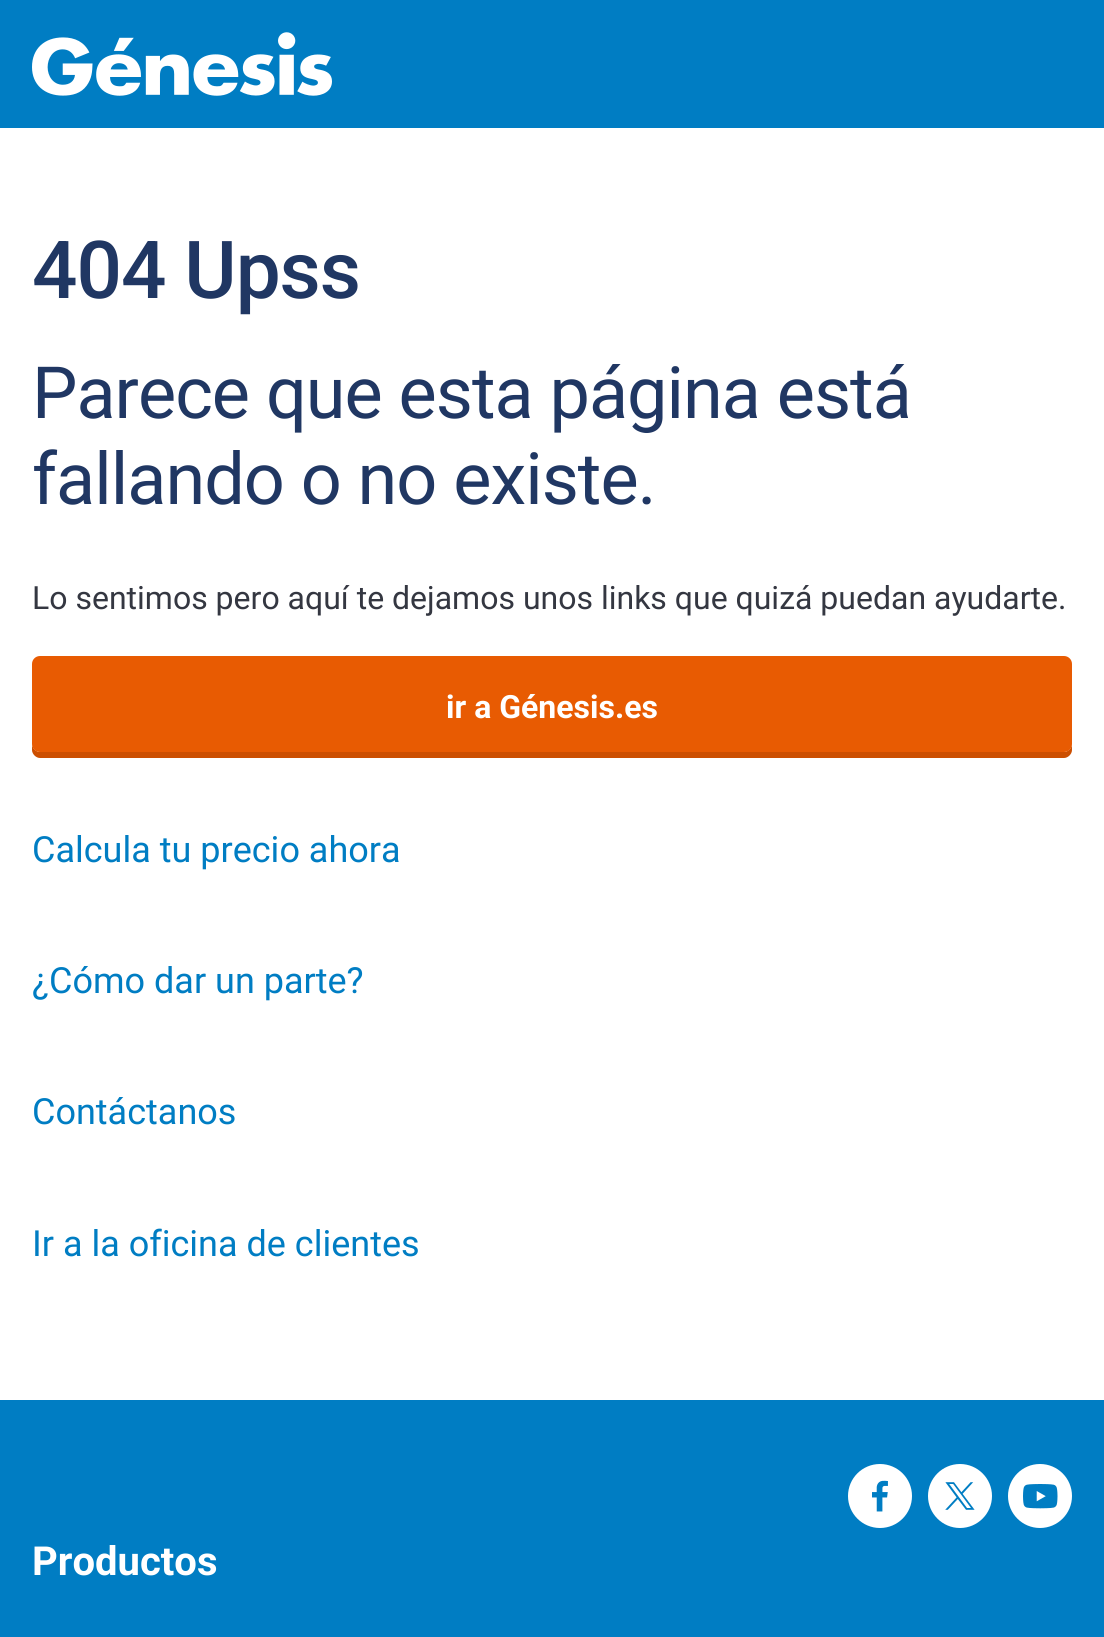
#include <cairo.h>
#include <math.h>
#include <stddef.h>


static void rgb(cairo_t *cr, int r, int g, int b)
{
	cairo_set_source_rgb(cr, r / 255.0, g / 255.0, b / 255.0);
}

static void face(cairo_t *cr, const char *family, double size, int italic, int bold)
{
	cairo_select_font_face(cr, family, italic ? CAIRO_FONT_SLANT_ITALIC : CAIRO_FONT_SLANT_NORMAL,
		bold ? CAIRO_FONT_WEIGHT_BOLD : CAIRO_FONT_WEIGHT_NORMAL);
	cairo_set_font_size(cr, size);
}

static void label(cairo_t *cr, double x, double y, const char *s)
{
	cairo_move_to(cr, x, y);
	cairo_show_text(cr, s);
}

static void tracked(cairo_t *cr, double x, double y, const char *s, double letter, double word)
{
	cairo_move_to(cr, x, y);
	while (*s) {
		char ch[5] = {0};
		int n = 0;
		do ch[n++] = *s++; while ((*s & 0xC0) == 0x80);
		cairo_show_text(cr, ch);
		cairo_rel_move_to(cr, letter + word * (*ch == ' '), 0);
	}
}

static void rect(cairo_t *cr, double x, double y, double w, double h)
{
	cairo_rectangle(cr, x, y, w, h);
	cairo_fill(cr);
}

static void rrect(cairo_t *cr, double x, double y, double w, double h, double r)
{
	cairo_new_sub_path(cr);
	cairo_arc(cr, x + w - r, y + h - r, r, 0, M_PI / 2);
	cairo_arc(cr, x + r, y + h - r, r, M_PI / 2, M_PI);
	cairo_arc(cr, x + r, y + r, r, M_PI, 1.5 * M_PI);
	cairo_arc(cr, x + w - r, y + r, r, 1.5 * M_PI, 2 * M_PI);
	cairo_close_path(cr);
}

static void image(cairo_t *cr, const char *path, double x, double y, double w, double h)
{
	cairo_surface_t *image = cairo_image_surface_create_from_png(path);
	cairo_save(cr);
	cairo_set_source_surface(cr, image, x, y);
	cairo_rectangle(cr, x, y, w, h);
	cairo_fill(cr);
	cairo_restore(cr);
	cairo_surface_destroy(image);
}

static void draw(cairo_t *cr) {
	rgb(cr, 255, 255, 255);
	cairo_paint(cr);
	rgb(cr, 0, 125, 195);
	rect(cr, 0, 0, 1104, 128);
	image(cr, "image0.png", 32, 32, 300, 64);
	face(cr, "Roboto Medium", 80, 0, 0);
	rgb(cr, 32, 55, 99);
	tracked(cr, 32, 298, "404 Upss", -1, 0);
	face(cr, "Roboto", 72, 0, 0);
	tracked(cr, 32, 418, "Parece que esta página está", -1, 0);
	tracked(cr, 32, 504, "fallando o no existe.", -1, 0);
	face(cr, "Roboto", 32, 0, 0);
	rgb(cr, 52, 55, 65);
	label(cr, 32, 609, "Lo sentimos pero aquí te dejamos unos links que quizá puedan ayudarte.");
	rgb(cr, 204, 79, 1);
	cairo_new_path(cr);
	cairo_move_to(cr, 32, 744);
	cairo_line_to(cr, 32, 750);
	cairo_curve_to(cr, 32, 754, 36, 758, 40, 758);
	cairo_line_to(cr, 1064, 758);
	cairo_curve_to(cr, 1068, 758, 1072, 754, 1072, 750);
	cairo_line_to(cr, 1072, 744);
	cairo_curve_to(cr, 1072, 748, 1068, 752, 1064, 752);
	cairo_line_to(cr, 40, 752);
	cairo_curve_to(cr, 36, 752, 32, 748, 32, 744);
	cairo_close_path(cr);
	cairo_fill(cr);
	rgb(cr, 232, 91, 2);
	rrect(cr, 33, 657, 1038, 94, 7);
	cairo_fill_preserve(cr);
	cairo_stroke(cr);
	face(cr, "Roboto", 32, 0, 1);
	rgb(cr, 255, 255, 255);
	label(cr, 446, 718, "ir a Génesis.es");
	face(cr, "Roboto", 36, 0, 0);
	rgb(cr, 0, 125, 195);
	label(cr, 32, 862, "Calcula tu precio ahora");
	label(cr, 32, 993, "¿Cómo dar un parte?");
	label(cr, 32, 1124, "Contáctanos");
	label(cr, 32, 1256, "Ir a la oficina de clientes");
	rect(cr, 0, 1400, 1104, 237);
	image(cr, "image1.png", 848, 1464, 64, 64);
	image(cr, "image2.png", 928, 1464, 64, 64);
	image(cr, "image3.png", 1008, 1464, 64, 64);
	face(cr, "Roboto", 40, 0, 1);
	rgb(cr, 255, 255, 255);
	label(cr, 32, 1575, "Productos");
}

int main(void) {
	cairo_surface_t *surface = cairo_image_surface_create(CAIRO_FORMAT_RGB24, 1104, 1637);
	cairo_t *cr = cairo_create(surface);
	cairo_font_options_t *options = cairo_font_options_create();
	cairo_font_options_set_hint_metrics(options, CAIRO_HINT_METRICS_OFF);
	cairo_font_options_set_hint_style(options, CAIRO_HINT_STYLE_NONE);
	cairo_set_font_options(cr, options);
	cairo_set_miter_limit(cr, 4);
	draw(cr);
	cairo_surface_write_to_png(surface, "render.png");
	cairo_font_options_destroy(options);
	cairo_destroy(cr);
	cairo_surface_destroy(surface);
	return 0;
}
